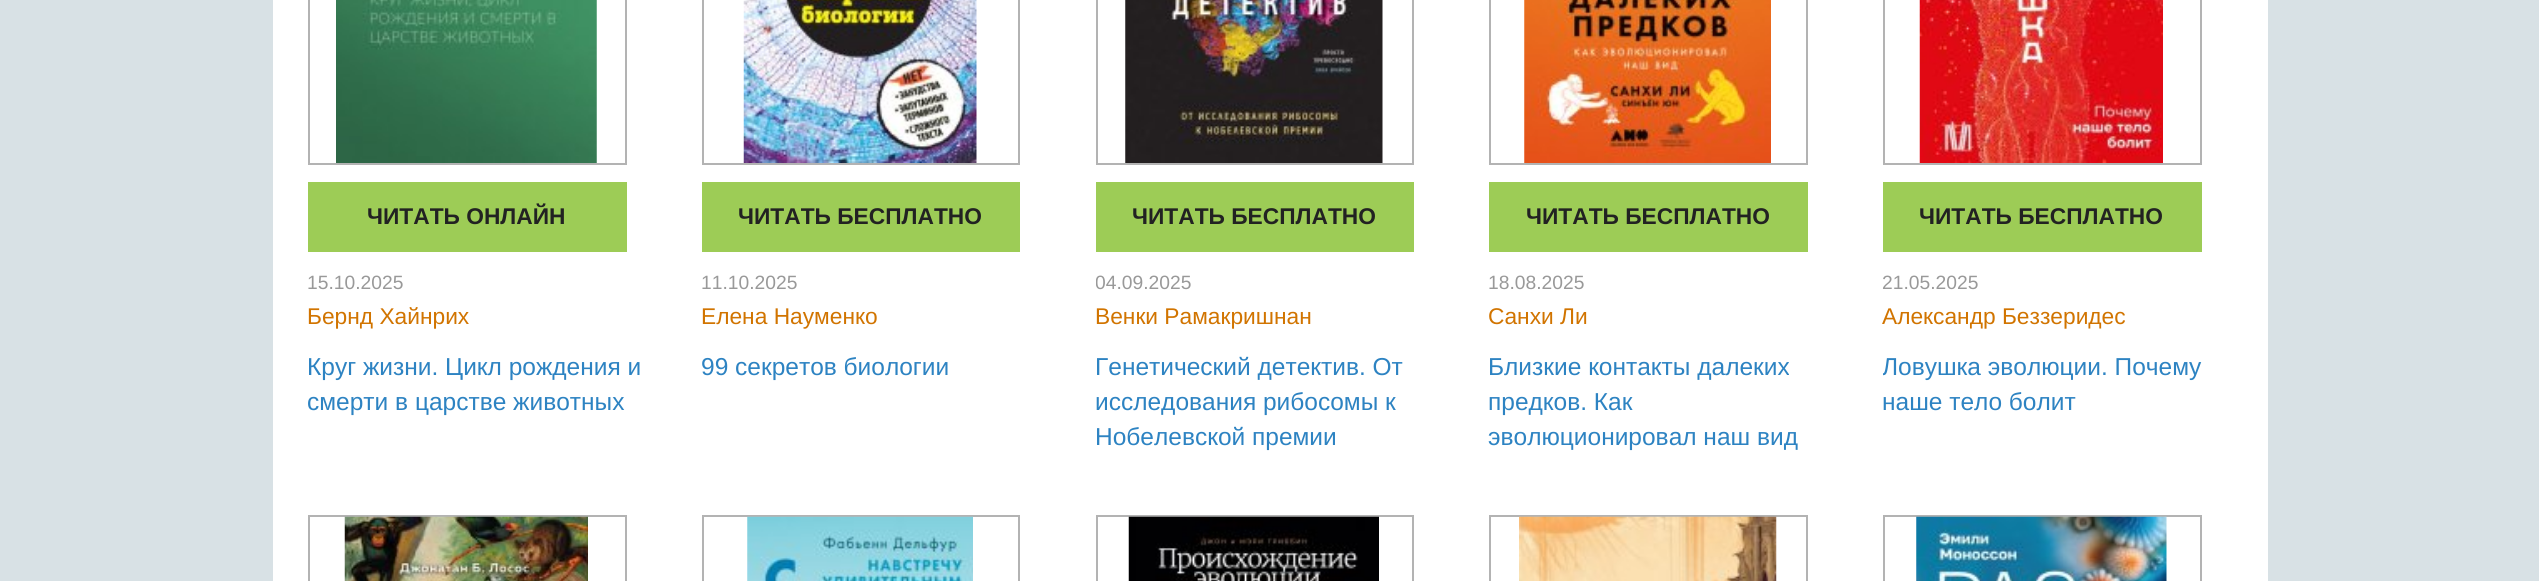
#include <cairo.h>
#include <math.h>
#include <stddef.h>


static void rgb(cairo_t *cr, int r, int g, int b)
{
	cairo_set_source_rgb(cr, r / 255.0, g / 255.0, b / 255.0);
}

static void face(cairo_t *cr, const char *family, double size, int italic, int bold)
{
	cairo_select_font_face(cr, family, italic ? CAIRO_FONT_SLANT_ITALIC : CAIRO_FONT_SLANT_NORMAL,
		bold ? CAIRO_FONT_WEIGHT_BOLD : CAIRO_FONT_WEIGHT_NORMAL);
	cairo_set_font_size(cr, size);
}

static void label(cairo_t *cr, double x, double y, const char *s)
{
	cairo_move_to(cr, x, y);
	cairo_show_text(cr, s);
}

static void rect(cairo_t *cr, double x, double y, double w, double h)
{
	cairo_rectangle(cr, x, y, w, h);
	cairo_fill(cr);
}

static void image(cairo_t *cr, const char *path, double x, double y, double w, double h)
{
	cairo_surface_t *image = cairo_image_surface_create_from_png(path);
	cairo_save(cr);
	cairo_set_source_surface(cr, image, x, y);
	cairo_rectangle(cr, x, y, w, h);
	cairo_fill(cr);
	cairo_restore(cr);
	cairo_surface_destroy(image);
}

static void draw(cairo_t *cr) {
	rgb(cr, 216, 225, 229);
	cairo_paint(cr);
	rgb(cr, 255, 255, 255);
	rect(cr, 273, 0, 1995, 581);
	cairo_rectangle(cr, 309, -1, 317, 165);
	rgb(cr, 179, 179, 179);
	cairo_stroke(cr);
	image(cr, "image0.png", 336, 0, 261, 163);
	rgb(cr, 157, 204, 86);
	rect(cr, 308, 182, 319, 70);
	face(cr, "Liberation Sans", 22.75, 0, 1);
	rgb(cr, 34, 34, 34);
	label(cr, 367, 224, "ЧИТАТЬ ОНЛАЙН");
	face(cr, "Liberation Sans", 19.25, 0, 0);
	rgb(cr, 153, 153, 153);
	label(cr, 307, 289, "15.10.2025");
	face(cr, "Liberation Sans", 22.75, 0, 0);
	rgb(cr, 209, 116, 0);
	label(cr, 307, 324, "Бернд Хайнрих");
	face(cr, "Liberation Sans", 24.5, 0, 0);
	rgb(cr, 45, 131, 194);
	label(cr, 307, 375, "Круг жизни. Цикл рождения и");
	label(cr, 307, 410, "смерти в царстве животных");
	cairo_rectangle(cr, 703, -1, 316, 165);
	rgb(cr, 179, 179, 179);
	cairo_stroke(cr);
	image(cr, "image1.png", 743, 0, 234, 163);
	rgb(cr, 157, 204, 86);
	rect(cr, 702, 182, 318, 70);
	face(cr, "Liberation Sans", 22.75, 0, 1);
	rgb(cr, 34, 34, 34);
	label(cr, 738, 224, "ЧИТАТЬ БЕСПЛАТНО");
	face(cr, "Liberation Sans", 19.25, 0, 0);
	rgb(cr, 153, 153, 153);
	label(cr, 701, 289, "11.10.2025");
	face(cr, "Liberation Sans", 22.75, 0, 0);
	rgb(cr, 209, 116, 0);
	label(cr, 701, 324, "Елена Науменко");
	face(cr, "Liberation Sans", 24.5, 0, 0);
	rgb(cr, 45, 131, 194);
	label(cr, 701, 375, "99 секретов биологии");
	cairo_rectangle(cr, 1097, -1, 316, 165);
	rgb(cr, 179, 179, 179);
	cairo_stroke(cr);
	image(cr, "image2.png", 1125, 0, 258, 163);
	rgb(cr, 157, 204, 86);
	rect(cr, 1096, 182, 318, 70);
	face(cr, "Liberation Sans", 22.75, 0, 1);
	rgb(cr, 34, 34, 34);
	label(cr, 1132, 224, "ЧИТАТЬ БЕСПЛАТНО");
	cairo_save(cr);
	cairo_rectangle(cr, 1096, 0, 350, 462);
	cairo_clip(cr);
	face(cr, "Liberation Sans", 19.25, 0, 0);
	rgb(cr, 153, 153, 153);
	label(cr, 1095, 289, "04.09.2025");
	cairo_restore(cr);
	face(cr, "Liberation Sans", 22.75, 0, 0);
	rgb(cr, 209, 116, 0);
	label(cr, 1095, 324, "Венки Рамакришнан");
	face(cr, "Liberation Sans", 24.5, 0, 0);
	rgb(cr, 45, 131, 194);
	label(cr, 1095, 375, "Генетический детектив. От");
	label(cr, 1095, 410, "исследования рибосомы к");
	label(cr, 1095, 445, "Нобелевской премии");
	cairo_rectangle(cr, 1490, -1, 317, 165);
	rgb(cr, 179, 179, 179);
	cairo_stroke(cr);
	image(cr, "image3.png", 1524, 0, 247, 163);
	rgb(cr, 157, 204, 86);
	rect(cr, 1489, 182, 319, 70);
	face(cr, "Liberation Sans", 22.75, 0, 1);
	rgb(cr, 34, 34, 34);
	label(cr, 1526, 224, "ЧИТАТЬ БЕСПЛАТНО");
	face(cr, "Liberation Sans", 19.25, 0, 0);
	rgb(cr, 153, 153, 153);
	label(cr, 1488, 289, "18.08.2025");
	face(cr, "Liberation Sans", 22.75, 0, 0);
	rgb(cr, 209, 116, 0);
	label(cr, 1488, 324, "Санхи Ли");
	face(cr, "Liberation Sans", 24.5, 0, 0);
	rgb(cr, 45, 131, 194);
	label(cr, 1488, 375, "Близкие контакты далеких");
	label(cr, 1488, 410, "предков. Как");
	label(cr, 1488, 445, "эволюционировал наш вид");
	cairo_rectangle(cr, 1884, -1, 317, 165);
	rgb(cr, 179, 179, 179);
	cairo_stroke(cr);
	image(cr, "image4.png", 1919, 0, 244, 163);
	rgb(cr, 157, 204, 86);
	rect(cr, 1883, 182, 319, 70);
	face(cr, "Liberation Sans", 22.75, 0, 1);
	rgb(cr, 34, 34, 34);
	label(cr, 1919, 224, "ЧИТАТЬ БЕСПЛАТНО");
	face(cr, "Liberation Sans", 19.25, 0, 0);
	rgb(cr, 153, 153, 153);
	label(cr, 1882, 289, "21.05.2025");
	face(cr, "Liberation Sans", 22.75, 0, 0);
	rgb(cr, 209, 116, 0);
	label(cr, 1882, 324, "Александр Беззеридес");
	cairo_save(cr);
	cairo_rectangle(cr, 1883, 0, 350, 427);
	cairo_clip(cr);
	face(cr, "Liberation Sans", 24.5, 0, 0);
	rgb(cr, 45, 131, 194);
	label(cr, 1882, 375, "Ловушка эволюции. Почему");
	cairo_restore(cr);
	face(cr, "Liberation Sans", 24.5, 0, 0);
	rgb(cr, 45, 131, 194);
	label(cr, 1882, 410, "наше тело болит");
	cairo_rectangle(cr, 309, 516, 317, 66);
	rgb(cr, 179, 179, 179);
	cairo_stroke(cr);
	image(cr, "image5.png", 344, 516, 244, 65);
	cairo_rectangle(cr, 703, 516, 316, 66);
	cairo_stroke(cr);
	image(cr, "image6.png", 747, 516, 226, 65);
	cairo_rectangle(cr, 1097, 516, 316, 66);
	cairo_stroke(cr);
	image(cr, "image7.png", 1128, 516, 251, 65);
	cairo_rectangle(cr, 1490, 516, 317, 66);
	cairo_stroke(cr);
	image(cr, "image8.png", 1519, 516, 258, 65);
	cairo_rectangle(cr, 1884, 516, 317, 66);
	cairo_stroke(cr);
	image(cr, "image9.png", 1916, 516, 251, 65);
}

int main(void) {
	cairo_surface_t *surface = cairo_image_surface_create(CAIRO_FORMAT_RGB24, 2539, 581);
	cairo_t *cr = cairo_create(surface);
	cairo_font_options_t *options = cairo_font_options_create();
	cairo_font_options_set_hint_metrics(options, CAIRO_HINT_METRICS_OFF);
	cairo_font_options_set_hint_style(options, CAIRO_HINT_STYLE_NONE);
	cairo_set_font_options(cr, options);
	cairo_set_miter_limit(cr, 4);
	draw(cr);
	cairo_surface_write_to_png(surface, "render.png");
	cairo_font_options_destroy(options);
	cairo_destroy(cr);
	cairo_surface_destroy(surface);
	return 0;
}
